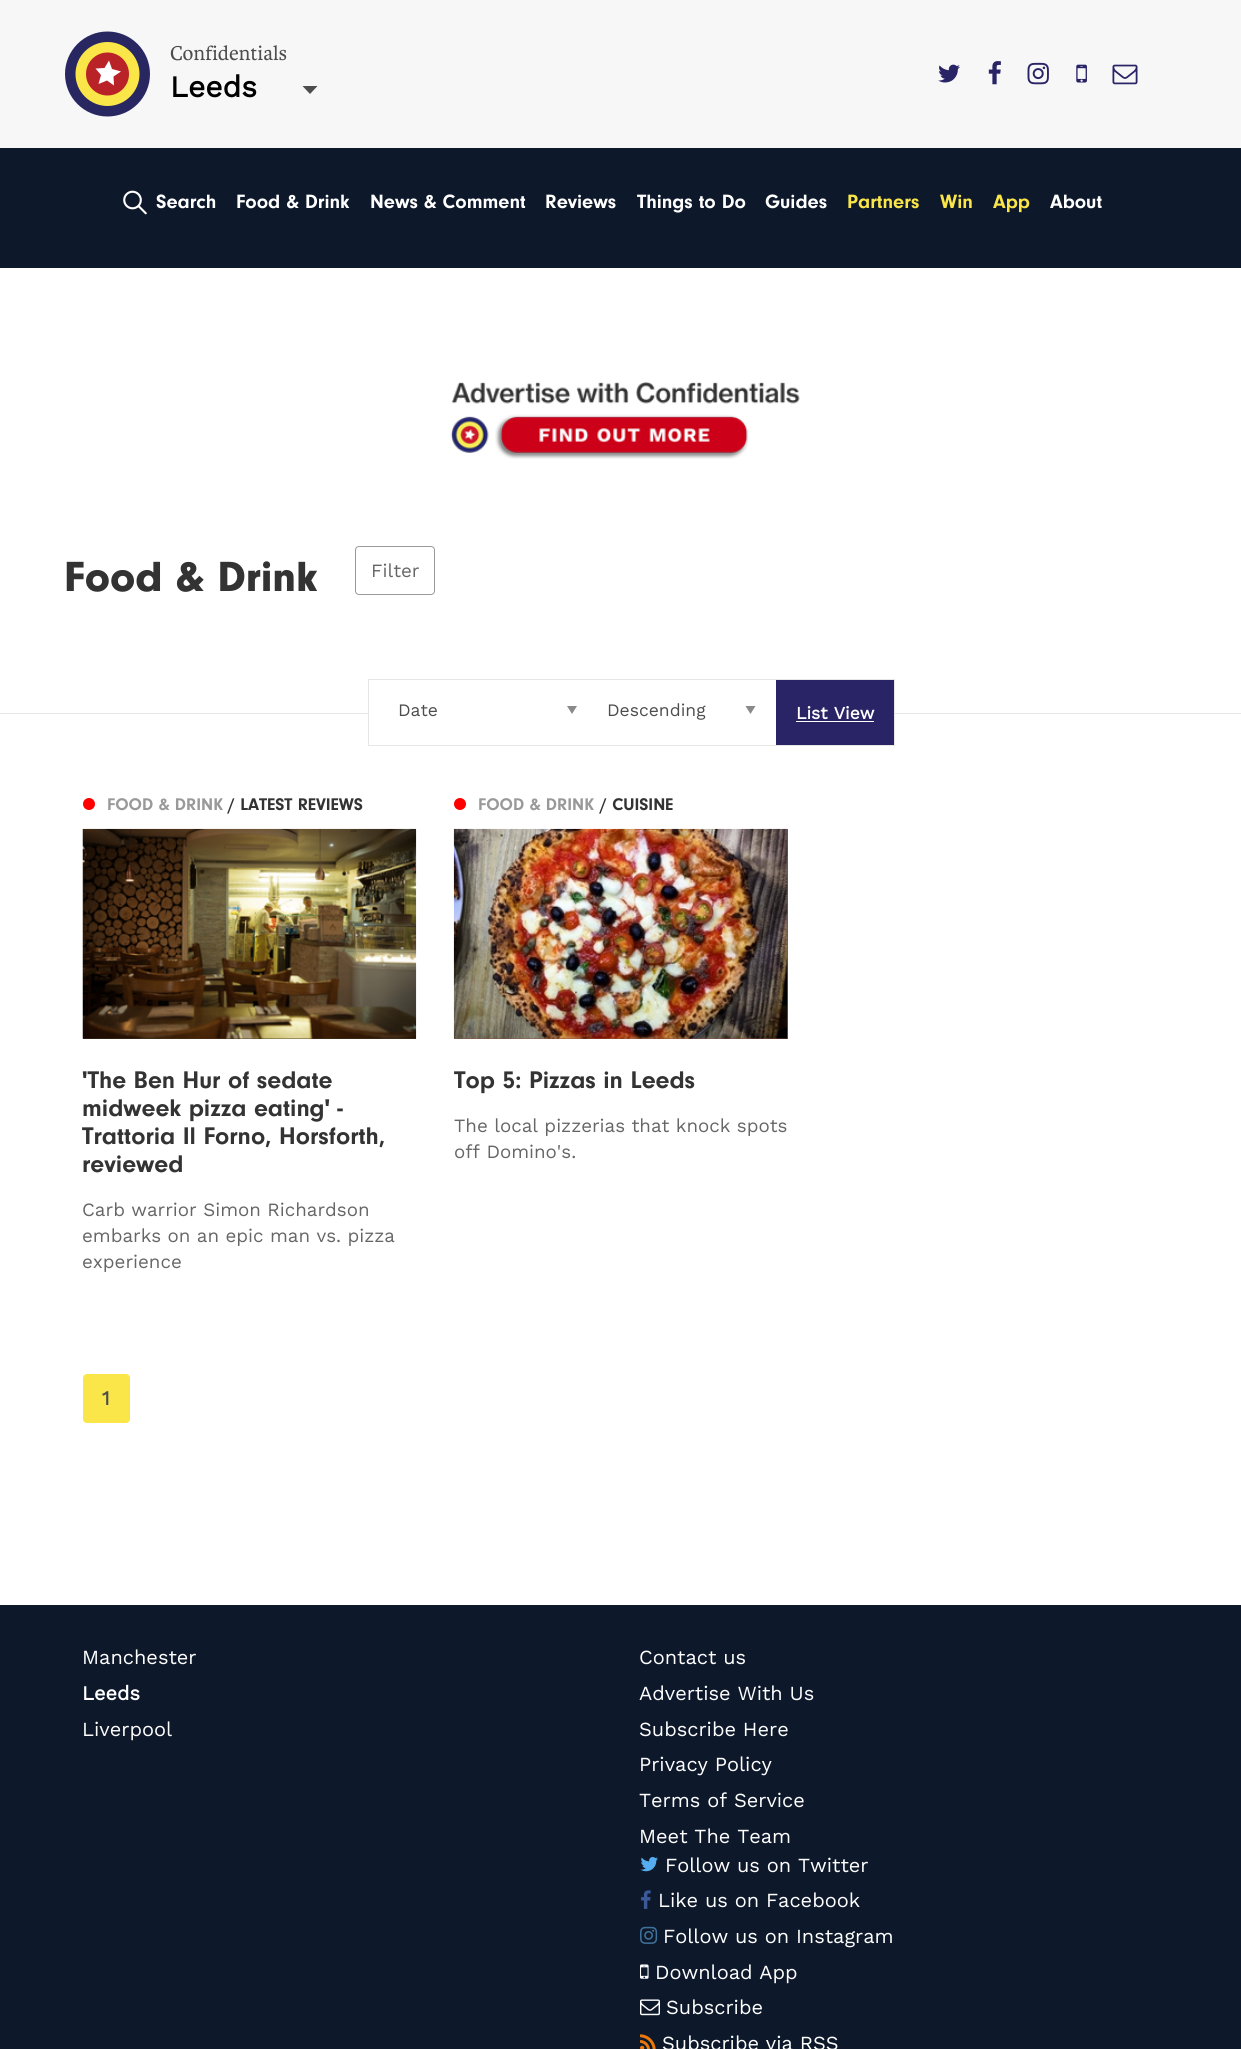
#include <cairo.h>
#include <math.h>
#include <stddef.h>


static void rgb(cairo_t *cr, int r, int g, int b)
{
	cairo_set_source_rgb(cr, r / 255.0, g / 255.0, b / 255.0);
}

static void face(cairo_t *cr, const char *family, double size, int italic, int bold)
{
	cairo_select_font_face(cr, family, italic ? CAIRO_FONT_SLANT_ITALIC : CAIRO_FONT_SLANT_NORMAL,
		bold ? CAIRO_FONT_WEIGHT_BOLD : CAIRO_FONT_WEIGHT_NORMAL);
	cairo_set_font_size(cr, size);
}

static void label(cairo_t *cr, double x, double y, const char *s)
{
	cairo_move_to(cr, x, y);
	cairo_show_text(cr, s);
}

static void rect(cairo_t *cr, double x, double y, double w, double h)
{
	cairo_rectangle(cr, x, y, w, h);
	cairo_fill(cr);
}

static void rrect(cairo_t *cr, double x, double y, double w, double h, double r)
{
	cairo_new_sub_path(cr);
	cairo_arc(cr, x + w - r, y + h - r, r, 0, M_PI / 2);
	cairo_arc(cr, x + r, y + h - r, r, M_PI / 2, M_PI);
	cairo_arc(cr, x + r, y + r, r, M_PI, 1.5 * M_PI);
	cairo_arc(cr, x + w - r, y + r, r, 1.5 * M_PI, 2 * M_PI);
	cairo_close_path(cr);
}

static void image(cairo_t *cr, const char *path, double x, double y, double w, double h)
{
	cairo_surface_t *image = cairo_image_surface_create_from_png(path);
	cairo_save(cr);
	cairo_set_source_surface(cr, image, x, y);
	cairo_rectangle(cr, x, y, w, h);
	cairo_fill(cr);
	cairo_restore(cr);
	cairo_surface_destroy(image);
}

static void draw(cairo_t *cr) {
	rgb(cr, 255, 255, 255);
	cairo_paint(cr);
	rgb(cr, 247, 247, 247);
	rect(cr, 0, 0, 1241, 148);
	rgb(cr, 40, 39, 98);
	cairo_arc(cr, 107.5, 74, 42.5, 0, 2 * M_PI);
	cairo_fill(cr);
	rgb(cr, 251, 230, 73);
	cairo_arc(cr, 107.5, 74, 32, 0, 2 * M_PI);
	cairo_fill(cr);
	rgb(cr, 185, 35, 39);
	cairo_arc(cr, 107.5, 74, 21.5, 0, 2 * M_PI);
	cairo_fill(cr);
	rgb(cr, 255, 255, 255);
	cairo_new_path(cr);
	cairo_move_to(cr, 104.5, 68);
	cairo_line_to(cr, 109, 60.5);
	cairo_line_to(cr, 112, 69);
	cairo_line_to(cr, 121, 71.5);
	cairo_line_to(cr, 113.5, 76.5);
	cairo_line_to(cr, 114, 85.5);
	cairo_line_to(cr, 107, 80.5);
	cairo_line_to(cr, 98.5, 84);
	cairo_line_to(cr, 101, 75);
	cairo_line_to(cr, 95.5, 68.5);
	cairo_fill(cr);
	face(cr, "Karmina", 21.25, 0, 0);
	rgb(cr, 77, 77, 77);
	label(cr, 170, 60, "Confidentials");
	face(cr, "Work Sans", 30, 0, 1);
	rgb(cr, 0, 0, 0);
	label(cr, 170, 97, "Leeds");
	rgb(cr, 77, 77, 77);
	cairo_new_path(cr);
	cairo_move_to(cr, 302.5, 86);
	cairo_line_to(cr, 317.5, 86);
	cairo_line_to(cr, 310, 94);
	cairo_close_path(cr);
	cairo_fill(cr);
	image(cr, "image0.png", 938, 64, 22, 19);
	image(cr, "image1.png", 988, 61, 13, 24);
	image(cr, "image2.png", 1027, 62, 22, 23);
	image(cr, "image3.png", 1076, 64, 11, 19);
	image(cr, "image4.png", 1112, 64, 26, 21);
	rgb(cr, 13, 24, 42);
	rect(cr, 0, 148, 1241, 120);
	image(cr, "image5.png", 123, 190, 24, 25);
	face(cr, "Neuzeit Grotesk", 20, 0, 1);
	rgb(cr, 255, 255, 255);
	label(cr, 156, 208, "Search");
	label(cr, 236, 208, "Food & Drink");
	label(cr, 370, 208, "News & Comment");
	label(cr, 545, 208, "Reviews");
	label(cr, 637, 208, "Things to Do");
	label(cr, 765, 208, "Guides");
	rgb(cr, 251, 230, 74);
	label(cr, 847, 208, "Partners");
	label(cr, 940, 208, "Win");
	label(cr, 993, 208, "App");
	rgb(cr, 255, 255, 255);
	label(cr, 1050, 208, "About");
	image(cr, "image6.png", 450, 382, 350, 77);
	face(cr, "Neuzeit Grotesk Black", 43.75, 0, 0);
	rgb(cr, 51, 51, 51);
	label(cr, 64, 591, "Food & Drink");
	rrect(cr, 355.5, 546.5, 79, 48, 3.5);
	rgb(cr, 153, 153, 153);
	cairo_set_line_width(cr, 1);
	cairo_stroke(cr);
	face(cr, "Work Sans", 18.75, 0, 0);
	rgb(cr, 102, 102, 102);
	label(cr, 371, 577, "Filter");
	rgb(cr, 230, 230, 230);
	rect(cr, 0, 713, 1241, 1);
	rgb(cr, 255, 255, 255);
	rect(cr, 369, 713, 407, 1);
	cairo_rectangle(cr, 368.5, 679.5, 526, 66);
	rgb(cr, 230, 230, 230);
	cairo_stroke(cr);
	rgb(cr, 138, 138, 138);
	cairo_new_path(cr);
	cairo_move_to(cr, 567, 706);
	cairo_line_to(cr, 577, 706);
	cairo_line_to(cr, 572, 714);
	cairo_close_path(cr);
	cairo_fill(cr);
	face(cr, "Work Sans", 17.5, 0, 0);
	rgb(cr, 77, 77, 77);
	label(cr, 398, 716, "Date");
	rgb(cr, 138, 138, 138);
	cairo_new_path(cr);
	cairo_move_to(cr, 745.5, 706);
	cairo_line_to(cr, 755.5, 706);
	cairo_line_to(cr, 750.5, 714);
	cairo_close_path(cr);
	cairo_fill(cr);
	rgb(cr, 77, 77, 77);
	label(cr, 607, 716, "Descending");
	rgb(cr, 41, 36, 102);
	rect(cr, 776, 680, 118, 65);
	face(cr, "Work Sans", 17.5, 0, 1);
	rgb(cr, 255, 255, 255);
	label(cr, 796, 719, "List View");
	rect(cr, 796, 721, 78, 1);
	rgb(cr, 255, 0, 0);
	cairo_new_path(cr);
	cairo_arc(cr, 89, 804, 6, 0, 2 * M_PI);
	cairo_fill(cr);
	face(cr, "Neuzeit Grotesk", 17.5, 0, 1);
	rgb(cr, 153, 153, 153);
	label(cr, 107, 810, "FOOD & DRINK");
	rgb(cr, 51, 51, 51);
	label(cr, 228, 810, "/ LATEST REVIEWS");
	rgb(cr, 75, 53, 26);
	rect(cr, 83, 1038, 333, 1);
	image(cr, "image7.png", 82, 828, 335, 211);
	face(cr, "Neuzeit Grotesk", 25, 0, 1);
	rgb(cr, 51, 51, 51);
	label(cr, 82, 1088, "'The Ben Hur of sedate");
	label(cr, 82, 1116, "midweek pizza eating' -");
	label(cr, 82, 1144, "Trattoria Il Forno, Horsforth,");
	label(cr, 82, 1172, "reviewed");
	face(cr, "Work Sans", 18.75, 0, 0);
	rgb(cr, 102, 102, 102);
	label(cr, 82, 1216, "Carb warrior Simon Richardson");
	label(cr, 82, 1242, "embarks on an epic man vs. pizza");
	label(cr, 82, 1268, "experience");
	rgb(cr, 255, 0, 0);
	cairo_new_path(cr);
	cairo_arc(cr, 460, 804, 6, 0, 2 * M_PI);
	cairo_fill(cr);
	face(cr, "Neuzeit Grotesk", 17.5, 0, 1);
	rgb(cr, 153, 153, 153);
	label(cr, 478, 810, "FOOD & DRINK");
	rgb(cr, 51, 51, 51);
	label(cr, 600, 810, "/ CUISINE");
	rgb(cr, 138, 86, 62);
	rect(cr, 454, 829, 334, 210);
	image(cr, "image8.png", 453, 828, 335, 211);
	face(cr, "Neuzeit Grotesk", 25, 0, 1);
	rgb(cr, 51, 51, 51);
	label(cr, 454, 1088, "Top 5: Pizzas in Leeds");
	face(cr, "Work Sans", 18.75, 0, 0);
	rgb(cr, 102, 102, 102);
	label(cr, 454, 1132, "The local pizzerias that knock spots");
	label(cr, 454, 1158, "off Domino's.");
	rgb(cr, 251, 230, 74);
	rrect(cr, 83, 1374, 47, 49, 4);
	cairo_fill(cr);
	face(cr, "Work Sans", 20, 0, 1);
	rgb(cr, 77, 77, 77);
	label(cr, 102, 1405, "1");
	rgb(cr, 13, 24, 42);
	rect(cr, 0, 1605, 1241, 444);
	face(cr, "Work Sans", 20, 0, 0);
	rgb(cr, 255, 255, 255);
	label(cr, 82, 1664, "Manchester");
	face(cr, "Work Sans", 20, 0, 1);
	label(cr, 82, 1700, "Leeds");
	face(cr, "Work Sans", 20, 0, 0);
	label(cr, 82, 1736, "Liverpool");
	label(cr, 639, 1664, "Contact us");
	label(cr, 639, 1700, "Advertise With Us");
	label(cr, 639, 1736, "Subscribe Here");
	label(cr, 639, 1771, "Privacy Policy");
	label(cr, 639, 1807, "Terms of Service");
	label(cr, 639, 1843, "Meet The Team");
	image(cr, "image9.png", 640, 1857, 18, 15);
	label(cr, 665, 1872, "Follow us on Twitter");
	image(cr, "image10.png", 641, 1890, 10, 19);
	label(cr, 658, 1907, "Like us on Facebook");
	image(cr, "image11.png", 640, 1926, 18, 18);
	label(cr, 663, 1943, "Follow us on Instagram");
	image(cr, "image12.png", 640, 1964, 9, 15);
	label(cr, 655, 1979, "Download App");
	image(cr, "image13.png", 640, 1999, 20, 17);
	label(cr, 666, 2014, "Subscribe");
	image(cr, "image14.png", 640, 2034, 16, 15);
	label(cr, 662, 2050, "Subscribe via RSS");
}

int main(void) {
	cairo_surface_t *surface = cairo_image_surface_create(CAIRO_FORMAT_RGB24, 1241, 2049);
	cairo_t *cr = cairo_create(surface);
	cairo_font_options_t *options = cairo_font_options_create();
	cairo_font_options_set_hint_metrics(options, CAIRO_HINT_METRICS_OFF);
	cairo_font_options_set_hint_style(options, CAIRO_HINT_STYLE_NONE);
	cairo_set_font_options(cr, options);
	cairo_set_miter_limit(cr, 4);
	draw(cr);
	cairo_surface_write_to_png(surface, "render.png");
	cairo_font_options_destroy(options);
	cairo_destroy(cr);
	cairo_surface_destroy(surface);
	return 0;
}
